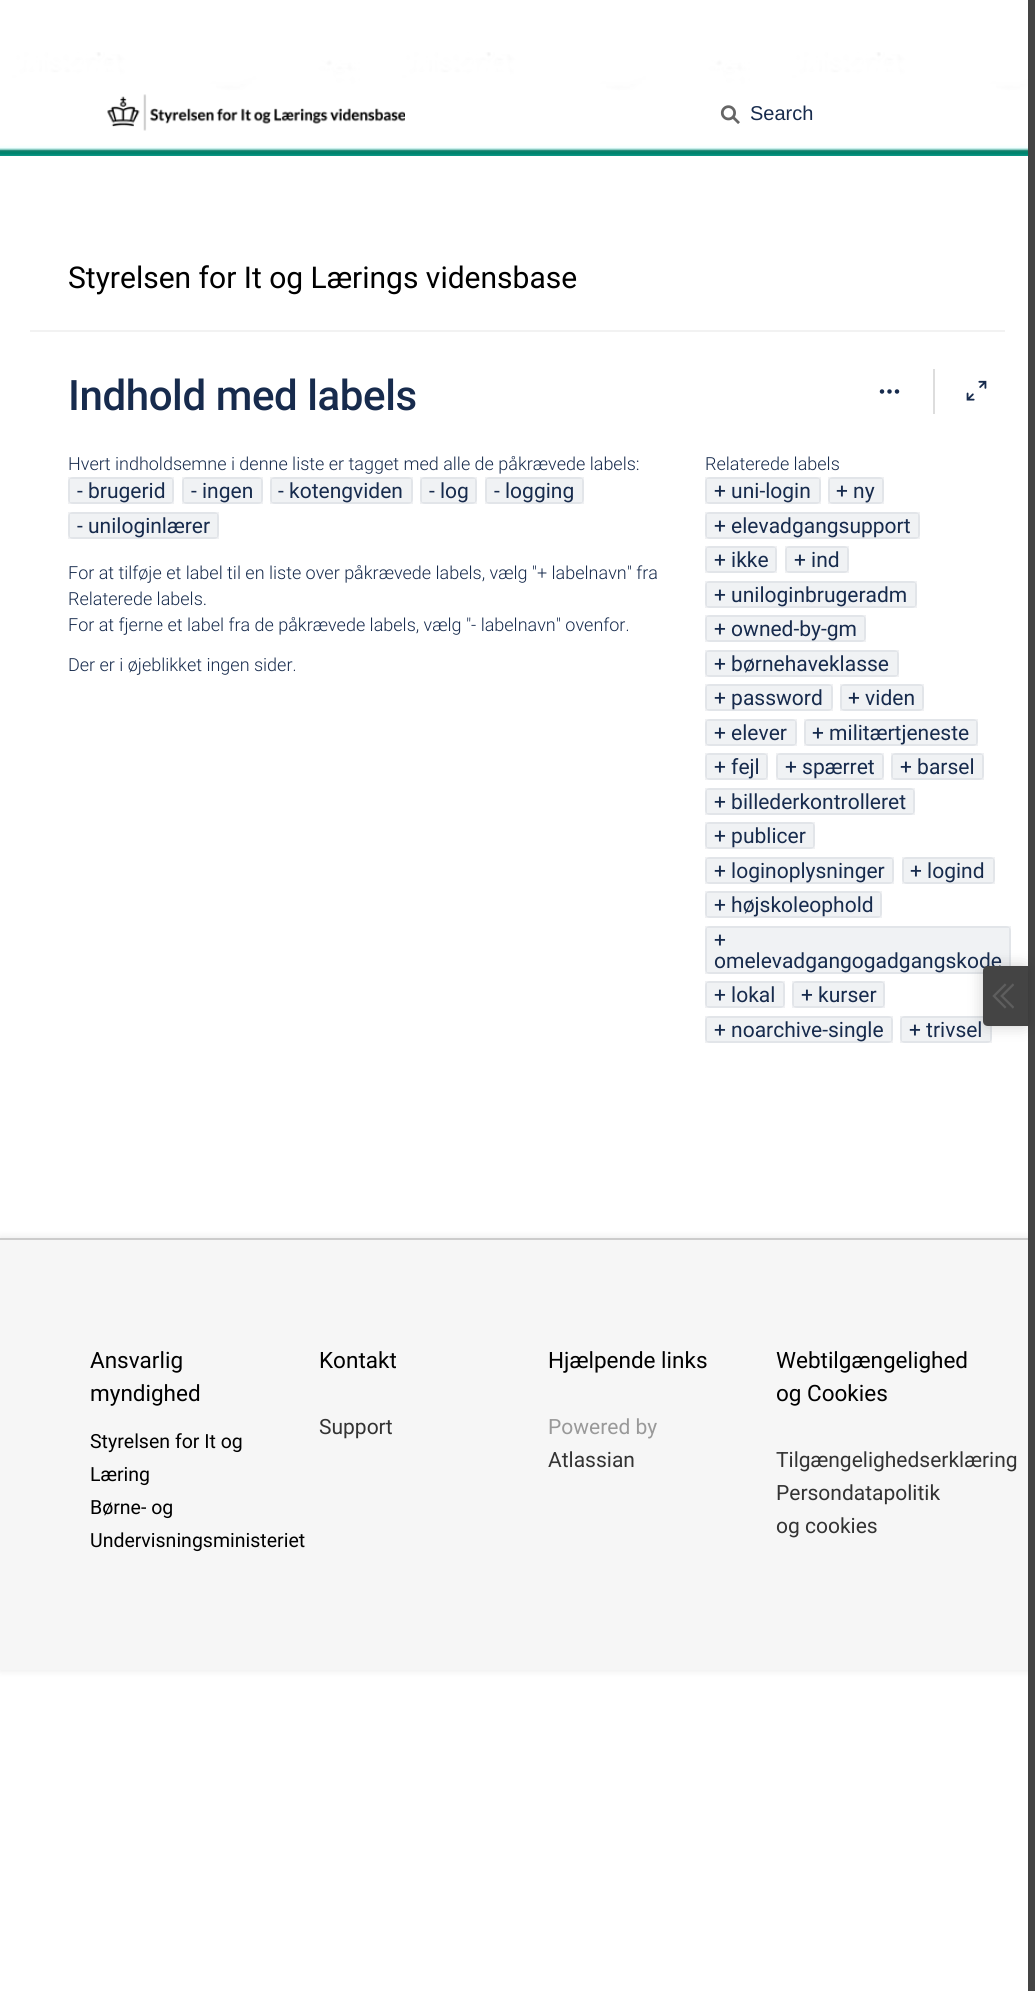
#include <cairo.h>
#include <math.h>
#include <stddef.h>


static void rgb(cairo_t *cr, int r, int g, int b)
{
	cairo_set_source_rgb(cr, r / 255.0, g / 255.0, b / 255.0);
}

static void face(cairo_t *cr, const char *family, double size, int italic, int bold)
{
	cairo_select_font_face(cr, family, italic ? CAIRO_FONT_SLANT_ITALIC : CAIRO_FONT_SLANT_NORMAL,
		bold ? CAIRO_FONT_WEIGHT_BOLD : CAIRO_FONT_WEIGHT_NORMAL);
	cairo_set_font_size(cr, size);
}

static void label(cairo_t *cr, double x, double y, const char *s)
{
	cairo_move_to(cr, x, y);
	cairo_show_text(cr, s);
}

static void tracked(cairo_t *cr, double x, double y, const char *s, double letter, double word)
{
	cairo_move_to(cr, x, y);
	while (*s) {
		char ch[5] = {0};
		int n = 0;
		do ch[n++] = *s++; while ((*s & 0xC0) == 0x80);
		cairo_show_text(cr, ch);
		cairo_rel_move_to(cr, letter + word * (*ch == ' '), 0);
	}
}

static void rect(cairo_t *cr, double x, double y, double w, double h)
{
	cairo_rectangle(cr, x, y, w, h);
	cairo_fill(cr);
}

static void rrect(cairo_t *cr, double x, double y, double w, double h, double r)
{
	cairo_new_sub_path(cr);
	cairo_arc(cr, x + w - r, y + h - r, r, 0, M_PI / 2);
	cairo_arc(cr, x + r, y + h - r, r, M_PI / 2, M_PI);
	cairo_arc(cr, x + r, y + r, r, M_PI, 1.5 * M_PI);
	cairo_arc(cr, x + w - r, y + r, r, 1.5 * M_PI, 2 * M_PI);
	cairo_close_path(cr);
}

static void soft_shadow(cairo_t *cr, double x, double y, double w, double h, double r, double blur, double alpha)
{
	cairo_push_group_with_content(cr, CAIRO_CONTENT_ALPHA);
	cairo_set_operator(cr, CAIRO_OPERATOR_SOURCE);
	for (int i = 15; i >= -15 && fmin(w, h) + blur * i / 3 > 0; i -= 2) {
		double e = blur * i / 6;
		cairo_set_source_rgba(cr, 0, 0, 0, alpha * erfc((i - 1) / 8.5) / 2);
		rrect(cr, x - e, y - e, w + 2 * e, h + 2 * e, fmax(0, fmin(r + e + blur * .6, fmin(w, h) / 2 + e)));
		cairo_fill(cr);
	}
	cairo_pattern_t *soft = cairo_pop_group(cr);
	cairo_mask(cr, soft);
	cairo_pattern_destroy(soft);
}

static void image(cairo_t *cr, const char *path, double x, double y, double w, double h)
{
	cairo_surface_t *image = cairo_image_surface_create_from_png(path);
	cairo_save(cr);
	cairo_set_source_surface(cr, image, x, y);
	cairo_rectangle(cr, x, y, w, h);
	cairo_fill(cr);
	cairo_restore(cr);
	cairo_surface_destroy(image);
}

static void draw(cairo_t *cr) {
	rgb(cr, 255, 255, 255);
	cairo_paint(cr);
	rgb(cr, 0, 0, 0);
	soft_shadow(cr, 0, 1238, 1035, 432, 0, 4, 0.1);
	rgb(cr, 204, 204, 204);
	rect(cr, 0, 1238, 1035, 2);
	rgb(cr, 68, 68, 68);
	rect(cr, 1028, 0, 7, 1991);
	rgb(cr, 240, 242, 244);
	rrect(cr, 705, 926, 306, 48, 5);
	cairo_fill(cr);
	cairo_rectangle(cr, 706, 927, 304, 46);
	cairo_set_source_rgba(cr, 0.035, 0.118, 0.259, 0.06);
	cairo_stroke(cr);
	rgb(cr, 240, 242, 244);
	rrect(cr, 900, 1016, 92, 27, 5);
	cairo_fill(cr);
	cairo_rectangle(cr, 901, 1017, 90, 25);
	cairo_set_source_rgba(cr, 0.035, 0.118, 0.259, 0.06);
	cairo_stroke(cr);
	rgb(cr, 0, 0, 0);
	soft_shadow(cr, 983, 966, 45, 60, 5, 7.5, 0.2);
	face(cr, "Roboto", 21, 0, 0);
	rgb(cr, 23, 43, 77);
	label(cr, 714, 968, "omelevadgangogadgangskode");
	rgb(cr, 68, 68, 68);
	cairo_new_path(cr);
	cairo_move_to(cr, 988, 966);
	cairo_line_to(cr, 1028, 966);
	cairo_line_to(cr, 1028, 1026);
	cairo_line_to(cr, 988, 1026);
	cairo_curve_to(cr, 985, 1026, 983, 1024, 983, 1021);
	cairo_line_to(cr, 983, 971);
	cairo_curve_to(cr, 983, 968, 985, 966, 988, 966);
	cairo_close_path(cr);
	cairo_fill(cr);
	image(cr, "image0.png", 992, 983, 22, 26);
	image(cr, "image1.png", 0, 52, 1028, 104);
	image(cr, "image2.png", 107, 94, 298, 37);
	image(cr, "image3.png", 720, 105, 20, 19);
	face(cr, "Liberation Sans", 20, 0, 0);
	rgb(cr, 23, 43, 77);
	label(cr, 750, 120, "Search");
	face(cr, "Roboto", 30, 0, 0);
	rgb(cr, 0, 0, 0);
	label(cr, 68, 288, "Styrelsen for It og Lærings vidensbase");
	rgb(cr, 242, 242, 242);
	rect(cr, 30, 330, 975, 2);
	face(cr, "Roboto Medium", 42, 0, 0);
	rgb(cr, 23, 43, 77);
	tracked(cr, 68, 410, "Indhold med labels", -0.4, 0);
	image(cr, "image4.png", 879, 389, 21, 5);
	rgb(cr, 221, 221, 221);
	rect(cr, 933, 369, 2, 45);
	image(cr, "image5.png", 966, 380, 21, 21);
	face(cr, "Roboto Light", 18, 0, 0);
	rgb(cr, 23, 43, 77);
	label(cr, 68, 470, "Hvert indholdsemne i denne liste er tagget med alle de påkrævede labels:");
	rgb(cr, 240, 242, 244);
	rrect(cr, 68, 477, 106, 27, 5);
	cairo_fill(cr);
	cairo_rectangle(cr, 69, 478, 104, 25);
	cairo_set_source_rgba(cr, 0.035, 0.118, 0.259, 0.06);
	cairo_stroke(cr);
	face(cr, "Roboto", 21, 0, 0);
	rgb(cr, 23, 43, 77);
	label(cr, 77, 498, "- brugerid");
	rgb(cr, 240, 242, 244);
	rrect(cr, 182, 477, 81, 27, 5);
	cairo_fill(cr);
	cairo_rectangle(cr, 183, 478, 79, 25);
	cairo_set_source_rgba(cr, 0.035, 0.118, 0.259, 0.06);
	cairo_stroke(cr);
	rgb(cr, 23, 43, 77);
	label(cr, 191, 498, "- ingen");
	rgb(cr, 240, 242, 244);
	rrect(cr, 270, 477, 143, 27, 5);
	cairo_fill(cr);
	cairo_rectangle(cr, 271, 478, 141, 25);
	cairo_set_source_rgba(cr, 0.035, 0.118, 0.259, 0.06);
	cairo_stroke(cr);
	rgb(cr, 23, 43, 77);
	label(cr, 278, 498, "- kotengviden");
	rgb(cr, 240, 242, 244);
	rrect(cr, 420, 477, 57, 27, 5);
	cairo_fill(cr);
	cairo_rectangle(cr, 421, 478, 55, 25);
	cairo_set_source_rgba(cr, 0.035, 0.118, 0.259, 0.06);
	cairo_stroke(cr);
	rgb(cr, 23, 43, 77);
	label(cr, 429, 498, "- log");
	rgb(cr, 240, 242, 244);
	rrect(cr, 485, 477, 99, 27, 5);
	cairo_fill(cr);
	cairo_rectangle(cr, 486, 478, 97, 25);
	cairo_set_source_rgba(cr, 0.035, 0.118, 0.259, 0.06);
	cairo_stroke(cr);
	rgb(cr, 23, 43, 77);
	label(cr, 494, 498, "- logging");
	rgb(cr, 240, 242, 244);
	rrect(cr, 68, 512, 151, 27, 5);
	cairo_fill(cr);
	cairo_rectangle(cr, 69, 513, 149, 25);
	cairo_set_source_rgba(cr, 0.035, 0.118, 0.259, 0.06);
	cairo_stroke(cr);
	rgb(cr, 23, 43, 77);
	label(cr, 77, 533, "- uniloginlærer");
	face(cr, "Roboto Light", 18, 0, 0);
	label(cr, 68, 579, "For at tilføje et label til en liste over påkrævede labels, vælg \"+ labelnavn\" fra");
	label(cr, 68, 605, "Relaterede labels.");
	label(cr, 68, 631, "For at fjerne et label fra de påkrævede labels, vælg \"- labelnavn\" ovenfor.");
	label(cr, 68, 671, "Der er i øjeblikket ingen sider.");
	label(cr, 705, 470, "Relaterede labels");
	rgb(cr, 240, 242, 244);
	rrect(cr, 705, 477, 116, 27, 5);
	cairo_fill(cr);
	cairo_rectangle(cr, 706, 478, 114, 25);
	cairo_set_source_rgba(cr, 0.035, 0.118, 0.259, 0.06);
	cairo_stroke(cr);
	face(cr, "Roboto", 21, 0, 0);
	rgb(cr, 23, 43, 77);
	label(cr, 714, 498, "+ uni-login");
	rgb(cr, 240, 242, 244);
	rrect(cr, 828, 477, 56, 27, 5);
	cairo_fill(cr);
	cairo_rectangle(cr, 829, 478, 54, 25);
	cairo_set_source_rgba(cr, 0.035, 0.118, 0.259, 0.06);
	cairo_stroke(cr);
	rgb(cr, 23, 43, 77);
	label(cr, 836, 498, "+ ny");
	rgb(cr, 240, 242, 244);
	rrect(cr, 705, 512, 215, 27, 5);
	cairo_fill(cr);
	cairo_rectangle(cr, 706, 513, 213, 25);
	cairo_set_source_rgba(cr, 0.035, 0.118, 0.259, 0.06);
	cairo_stroke(cr);
	rgb(cr, 23, 43, 77);
	label(cr, 714, 533, "+ elevadgangsupport");
	rgb(cr, 240, 242, 244);
	rrect(cr, 705, 546, 72, 27, 5);
	cairo_fill(cr);
	cairo_rectangle(cr, 706, 547, 70, 25);
	cairo_set_source_rgba(cr, 0.035, 0.118, 0.259, 0.06);
	cairo_stroke(cr);
	rgb(cr, 23, 43, 77);
	label(cr, 714, 567, "+ ikke");
	rgb(cr, 240, 242, 244);
	rrect(cr, 785, 546, 64, 27, 5);
	cairo_fill(cr);
	cairo_rectangle(cr, 786, 547, 62, 25);
	cairo_set_source_rgba(cr, 0.035, 0.118, 0.259, 0.06);
	cairo_stroke(cr);
	rgb(cr, 23, 43, 77);
	label(cr, 794, 567, "+ ind");
	rgb(cr, 240, 242, 244);
	rrect(cr, 705, 581, 212, 27, 5);
	cairo_fill(cr);
	cairo_rectangle(cr, 706, 582, 210, 25);
	cairo_set_source_rgba(cr, 0.035, 0.118, 0.259, 0.06);
	cairo_stroke(cr);
	rgb(cr, 23, 43, 77);
	label(cr, 714, 602, "+ uniloginbrugeradm");
	rgb(cr, 240, 242, 244);
	rrect(cr, 705, 615, 161, 27, 5);
	cairo_fill(cr);
	cairo_rectangle(cr, 706, 616, 159, 25);
	cairo_set_source_rgba(cr, 0.035, 0.118, 0.259, 0.06);
	cairo_stroke(cr);
	rgb(cr, 23, 43, 77);
	label(cr, 714, 636, "+ owned-by-gm");
	rgb(cr, 240, 242, 244);
	rrect(cr, 705, 650, 194, 27, 5);
	cairo_fill(cr);
	cairo_rectangle(cr, 706, 651, 192, 25);
	cairo_set_source_rgba(cr, 0.035, 0.118, 0.259, 0.06);
	cairo_stroke(cr);
	rgb(cr, 23, 43, 77);
	label(cr, 714, 671, "+ børnehaveklasse");
	rgb(cr, 240, 242, 244);
	rrect(cr, 705, 684, 128, 27, 5);
	cairo_fill(cr);
	cairo_rectangle(cr, 706, 685, 126, 25);
	cairo_set_source_rgba(cr, 0.035, 0.118, 0.259, 0.06);
	cairo_stroke(cr);
	rgb(cr, 23, 43, 77);
	label(cr, 714, 705, "+ password");
	rgb(cr, 240, 242, 244);
	rrect(cr, 840, 684, 84, 27, 5);
	cairo_fill(cr);
	cairo_rectangle(cr, 841, 685, 82, 25);
	cairo_set_source_rgba(cr, 0.035, 0.118, 0.259, 0.06);
	cairo_stroke(cr);
	rgb(cr, 23, 43, 77);
	label(cr, 848, 705, "+ viden");
	rgb(cr, 240, 242, 244);
	rrect(cr, 705, 719, 92, 27, 5);
	cairo_fill(cr);
	cairo_rectangle(cr, 706, 720, 90, 25);
	cairo_set_source_rgba(cr, 0.035, 0.118, 0.259, 0.06);
	cairo_stroke(cr);
	rgb(cr, 23, 43, 77);
	label(cr, 714, 740, "+ elever");
	rgb(cr, 240, 242, 244);
	rrect(cr, 804, 719, 174, 27, 5);
	cairo_fill(cr);
	cairo_rectangle(cr, 805, 720, 172, 25);
	cairo_set_source_rgba(cr, 0.035, 0.118, 0.259, 0.06);
	cairo_stroke(cr);
	rgb(cr, 23, 43, 77);
	label(cr, 812, 740, "+ militærtjeneste");
	rgb(cr, 240, 242, 244);
	rrect(cr, 705, 753, 63, 27, 5);
	cairo_fill(cr);
	cairo_rectangle(cr, 706, 754, 61, 25);
	cairo_set_source_rgba(cr, 0.035, 0.118, 0.259, 0.06);
	cairo_stroke(cr);
	rgb(cr, 23, 43, 77);
	label(cr, 714, 774, "+ fejl");
	rgb(cr, 240, 242, 244);
	rrect(cr, 776, 753, 108, 27, 5);
	cairo_fill(cr);
	cairo_rectangle(cr, 777, 754, 106, 25);
	cairo_set_source_rgba(cr, 0.035, 0.118, 0.259, 0.06);
	cairo_stroke(cr);
	rgb(cr, 23, 43, 77);
	label(cr, 785, 774, "+ spærret");
	rgb(cr, 240, 242, 244);
	rrect(cr, 891, 753, 93, 27, 5);
	cairo_fill(cr);
	cairo_rectangle(cr, 892, 754, 91, 25);
	cairo_set_source_rgba(cr, 0.035, 0.118, 0.259, 0.06);
	cairo_stroke(cr);
	rgb(cr, 23, 43, 77);
	label(cr, 900, 774, "+ barsel");
	rgb(cr, 240, 242, 244);
	rrect(cr, 705, 788, 210, 27, 5);
	cairo_fill(cr);
	cairo_rectangle(cr, 706, 789, 208, 25);
	cairo_set_source_rgba(cr, 0.035, 0.118, 0.259, 0.06);
	cairo_stroke(cr);
	rgb(cr, 23, 43, 77);
	label(cr, 714, 809, "+ billederkontrolleret");
	rgb(cr, 240, 242, 244);
	rrect(cr, 705, 822, 110, 27, 5);
	cairo_fill(cr);
	cairo_rectangle(cr, 706, 823, 108, 25);
	cairo_set_source_rgba(cr, 0.035, 0.118, 0.259, 0.06);
	cairo_stroke(cr);
	rgb(cr, 23, 43, 77);
	label(cr, 714, 843, "+ publicer");
	rgb(cr, 240, 242, 244);
	rrect(cr, 705, 857, 189, 27, 5);
	cairo_fill(cr);
	cairo_rectangle(cr, 706, 858, 187, 25);
	cairo_set_source_rgba(cr, 0.035, 0.118, 0.259, 0.06);
	cairo_stroke(cr);
	rgb(cr, 23, 43, 77);
	label(cr, 714, 878, "+ loginoplysninger");
	rgb(cr, 240, 242, 244);
	rrect(cr, 902, 857, 93, 27, 5);
	cairo_fill(cr);
	cairo_rectangle(cr, 903, 858, 91, 25);
	cairo_set_source_rgba(cr, 0.035, 0.118, 0.259, 0.06);
	cairo_stroke(cr);
	rgb(cr, 23, 43, 77);
	label(cr, 910, 878, "+ logind");
	rgb(cr, 240, 242, 244);
	rrect(cr, 705, 891, 177, 27, 5);
	cairo_fill(cr);
	cairo_rectangle(cr, 706, 892, 175, 25);
	cairo_set_source_rgba(cr, 0.035, 0.118, 0.259, 0.06);
	cairo_stroke(cr);
	rgb(cr, 23, 43, 77);
	label(cr, 714, 912, "+ højskoleophold");
	label(cr, 714, 947, "+");
	rgb(cr, 240, 242, 244);
	rrect(cr, 705, 981, 80, 27, 5);
	cairo_fill(cr);
	cairo_rectangle(cr, 706, 982, 78, 25);
	cairo_set_source_rgba(cr, 0.035, 0.118, 0.259, 0.06);
	cairo_stroke(cr);
	rgb(cr, 23, 43, 77);
	label(cr, 714, 1002, "+ lokal");
	rgb(cr, 240, 242, 244);
	rrect(cr, 792, 981, 93, 27, 5);
	cairo_fill(cr);
	cairo_rectangle(cr, 793, 982, 91, 25);
	cairo_set_source_rgba(cr, 0.035, 0.118, 0.259, 0.06);
	cairo_stroke(cr);
	rgb(cr, 23, 43, 77);
	label(cr, 801, 1002, "+ kurser");
	rgb(cr, 240, 242, 244);
	rrect(cr, 705, 1016, 188, 27, 5);
	cairo_fill(cr);
	cairo_rectangle(cr, 706, 1017, 186, 25);
	cairo_set_source_rgba(cr, 0.035, 0.118, 0.259, 0.06);
	cairo_stroke(cr);
	rgb(cr, 23, 43, 77);
	label(cr, 714, 1037, "+ noarchive-single");
	label(cr, 909, 1037, "+ trivsel");
	rgb(cr, 246, 246, 246);
	rect(cr, 0, 1240, 1028, 430);
	face(cr, "Roboto", 22.5, 0, 0);
	rgb(cr, 0, 0, 0);
	label(cr, 90, 1368, "Ansvarlig");
	label(cr, 90, 1401, "myndighed");
	face(cr, "Roboto", 19.5, 0, 0);
	label(cr, 90, 1448, "Styrelsen for It og");
	label(cr, 90, 1481, "Læring");
	label(cr, 90, 1514, "Børne- og");
	label(cr, 90, 1547, "Undervisningsministeriet");
	face(cr, "Roboto", 22.5, 0, 0);
	label(cr, 319, 1368, "Kontakt");
	face(cr, "Roboto", 21, 0, 0);
	rgb(cr, 51, 51, 51);
	label(cr, 319, 1434, "Support");
	face(cr, "Roboto", 22.5, 0, 0);
	rgb(cr, 0, 0, 0);
	label(cr, 548, 1368, "Hjælpende links");
	face(cr, "Roboto", 21, 0, 0);
	rgb(cr, 153, 153, 153);
	label(cr, 548, 1434, "Powered by");
	rgb(cr, 51, 51, 51);
	label(cr, 548, 1467, "Atlassian");
	face(cr, "Roboto", 22.5, 0, 0);
	rgb(cr, 0, 0, 0);
	label(cr, 776, 1368, "Webtilgængelighed");
	label(cr, 776, 1401, "og Cookies");
	face(cr, "Roboto", 21, 0, 0);
	rgb(cr, 51, 51, 51);
	label(cr, 776, 1467, "Tilgængelighedserklæring");
	label(cr, 776, 1500, "Persondatapolitik");
	label(cr, 776, 1533, "og cookies");
}

int main(void) {
	cairo_surface_t *surface = cairo_image_surface_create(CAIRO_FORMAT_RGB24, 1035, 1991);
	cairo_t *cr = cairo_create(surface);
	cairo_font_options_t *options = cairo_font_options_create();
	cairo_font_options_set_hint_metrics(options, CAIRO_HINT_METRICS_OFF);
	cairo_font_options_set_hint_style(options, CAIRO_HINT_STYLE_NONE);
	cairo_set_font_options(cr, options);
	cairo_set_miter_limit(cr, 4);
	draw(cr);
	cairo_surface_write_to_png(surface, "render.png");
	cairo_font_options_destroy(options);
	cairo_destroy(cr);
	cairo_surface_destroy(surface);
	return 0;
}
